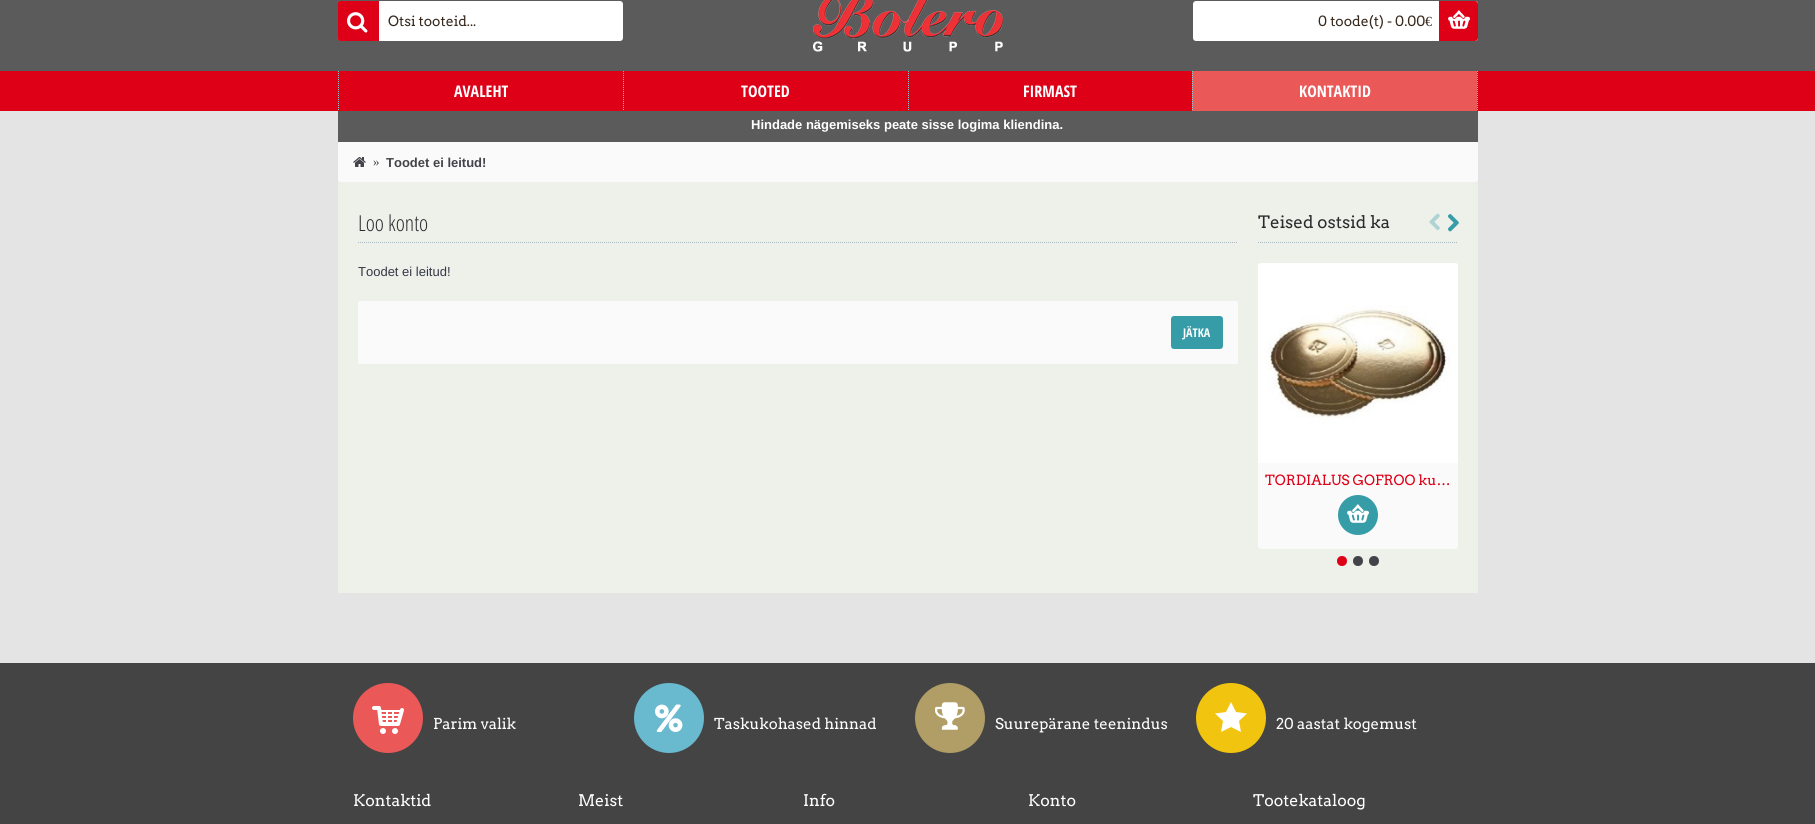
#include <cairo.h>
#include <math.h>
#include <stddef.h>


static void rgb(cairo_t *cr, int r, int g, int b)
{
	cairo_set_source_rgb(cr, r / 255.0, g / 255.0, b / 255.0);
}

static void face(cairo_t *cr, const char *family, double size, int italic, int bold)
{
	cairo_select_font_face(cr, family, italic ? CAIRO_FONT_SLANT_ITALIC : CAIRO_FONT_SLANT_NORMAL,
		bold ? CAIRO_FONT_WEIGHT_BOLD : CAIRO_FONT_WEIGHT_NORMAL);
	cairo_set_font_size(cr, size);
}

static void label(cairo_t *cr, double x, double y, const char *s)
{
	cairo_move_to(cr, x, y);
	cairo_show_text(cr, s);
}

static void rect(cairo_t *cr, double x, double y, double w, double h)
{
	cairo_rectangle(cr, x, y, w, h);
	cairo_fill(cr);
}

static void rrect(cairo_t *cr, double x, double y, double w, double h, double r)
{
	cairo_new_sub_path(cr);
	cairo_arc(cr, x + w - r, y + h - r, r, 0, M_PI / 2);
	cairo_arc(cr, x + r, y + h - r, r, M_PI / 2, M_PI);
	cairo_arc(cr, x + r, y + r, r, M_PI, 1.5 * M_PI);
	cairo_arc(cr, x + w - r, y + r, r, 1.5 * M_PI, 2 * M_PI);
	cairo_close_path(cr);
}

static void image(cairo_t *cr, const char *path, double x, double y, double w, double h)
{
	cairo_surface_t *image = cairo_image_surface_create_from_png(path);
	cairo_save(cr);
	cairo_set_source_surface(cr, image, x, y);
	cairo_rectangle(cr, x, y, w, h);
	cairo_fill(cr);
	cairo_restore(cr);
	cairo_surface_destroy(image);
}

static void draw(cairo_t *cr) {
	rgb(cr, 228, 228, 228);
	cairo_paint(cr);
	rgb(cr, 91, 91, 91);
	rect(cr, 0, 0, 1815, 71);
	rgb(cr, 255, 255, 255);
	rrect(cr, 338, 1, 285, 40, 3);
	cairo_fill(cr);
	rgb(cr, 221, 0, 23);
	cairo_new_path(cr);
	cairo_move_to(cr, 340, 1);
	cairo_line_to(cr, 379, 1);
	cairo_line_to(cr, 379, 41);
	cairo_line_to(cr, 340, 41);
	cairo_curve_to(cr, 339, 41, 338, 40, 338, 39);
	cairo_line_to(cr, 338, 3);
	cairo_curve_to(cr, 338, 2, 339, 1, 340, 1);
	cairo_close_path(cr);
	cairo_fill(cr);
	image(cr, "image0.png", 347, 12, 21, 21);
	face(cr, "Arvo", 14, 0, 0);
	rgb(cr, 55, 41, 30);
	label(cr, 388, 26, "Otsi tooteid...");
	image(cr, "image1.png", 813, 0, 190, 52);
	rgb(cr, 255, 255, 255);
	rrect(cr, 1193, 1, 285, 40, 3);
	cairo_fill(cr);
	rgb(cr, 55, 41, 30);
	label(cr, 1318, 26, "0 toode(t) - 0.00");
	face(cr, "Liberation Serif", 14, 0, 0);
	label(cr, 1425, 26, "€");
	rgb(cr, 221, 0, 23);
	cairo_new_path(cr);
	cairo_move_to(cr, 1439, 1);
	cairo_line_to(cr, 1475, 1);
	cairo_curve_to(cr, 1476.5, 1, 1478, 2.5, 1478, 4);
	cairo_line_to(cr, 1478, 38);
	cairo_curve_to(cr, 1478, 39.5, 1476.5, 41, 1475, 41);
	cairo_line_to(cr, 1439, 41);
	cairo_close_path(cr);
	cairo_fill(cr);
	image(cr, "image2.png", 1448, 10, 22, 19);
	rect(cr, 0, 71, 1815, 40);
	cairo_new_path(cr);
	cairo_move_to(cr, 1477.5, 71);
	cairo_line_to(cr, 1477.5, 111);
	rgb(cr, 131, 207, 216);
	cairo_set_line_width(cr, 1);
	cairo_set_dash(cr, (double[]){1, 1}, 2, 0);
	cairo_stroke(cr);
	cairo_new_path(cr);
	cairo_move_to(cr, 338.5, 71);
	cairo_line_to(cr, 338.5, 111);
	cairo_stroke(cr);
	face(cr, "Open Sans Condensed", 16, 0, 1);
	rgb(cr, 255, 255, 255);
	label(cr, 454, 97, "AVALEHT");
	cairo_new_path(cr);
	cairo_move_to(cr, 623.5, 71);
	cairo_line_to(cr, 623.5, 111);
	rgb(cr, 131, 207, 216);
	cairo_stroke(cr);
	rgb(cr, 255, 255, 255);
	label(cr, 741, 97, "TOOTED");
	cairo_new_path(cr);
	cairo_move_to(cr, 908.5, 71);
	cairo_line_to(cr, 908.5, 111);
	rgb(cr, 131, 207, 216);
	cairo_stroke(cr);
	rgb(cr, 255, 255, 255);
	label(cr, 1023, 97, "FIRMAST");
	rgb(cr, 235, 88, 88);
	rect(cr, 1192, 71, 285, 40);
	cairo_new_path(cr);
	cairo_move_to(cr, 1192.5, 71);
	cairo_line_to(cr, 1192.5, 111);
	rgb(cr, 131, 207, 216);
	cairo_stroke(cr);
	rgb(cr, 255, 255, 255);
	label(cr, 1299, 97, "KONTAKTID");
	rgb(cr, 91, 91, 91);
	rect(cr, 338, 111, 1140, 31);
	face(cr, "Liberation Sans", 13, 0, 1);
	rgb(cr, 255, 255, 255);
	label(cr, 751, 129, "Hindade nägemiseks peate sisse logima kliendina.");
	rgb(cr, 238, 241, 234);
	rect(cr, 338, 179, 1140, 414);
	rgb(cr, 250, 250, 250);
	cairo_new_path(cr);
	cairo_move_to(cr, 338, 142);
	cairo_line_to(cr, 1478, 142);
	cairo_line_to(cr, 1478, 179);
	cairo_curve_to(cr, 1478, 180.5, 1476.5, 182, 1475, 182);
	cairo_line_to(cr, 341, 182);
	cairo_curve_to(cr, 339.5, 182, 338, 180.5, 338, 179);
	cairo_close_path(cr);
	cairo_fill(cr);
	image(cr, "image3.png", 353, 157, 13, 10);
	face(cr, "Liberation Serif", 13, 0, 0);
	rgb(cr, 68, 67, 73);
	label(cr, 373, 166, "»");
	face(cr, "Liberation Sans", 13, 0, 1);
	label(cr, 386, 167, "Toodet ei leitud!");
	cairo_new_path(cr);
	cairo_move_to(cr, 358, 242.5);
	cairo_line_to(cr, 1238, 242.5);
	rgb(cr, 169, 184, 192);
	cairo_stroke(cr);
	face(cr, "Open Sans Condensed Light", 22, 0, 0);
	rgb(cr, 42, 43, 46);
	label(cr, 358, 231, "Loo konto");
	face(cr, "Liberation Sans", 13, 0, 0);
	rgb(cr, 51, 55, 69);
	label(cr, 358, 276, "Toodet ei leitud!");
	rgb(cr, 250, 250, 250);
	rrect(cr, 358, 301, 880, 63, 2);
	cairo_fill(cr);
	rgb(cr, 54, 156, 168);
	rrect(cr, 1171, 316, 52, 33, 3);
	cairo_fill(cr);
	face(cr, "Open Sans Condensed", 12, 0, 1);
	rgb(cr, 255, 255, 255);
	label(cr, 1183, 337, "JÄTKA");
	cairo_new_path(cr);
	cairo_move_to(cr, 1258, 242.5);
	cairo_line_to(cr, 1458, 242.5);
	rgb(cr, 169, 184, 192);
	cairo_stroke(cr);
	cairo_save(cr);
	cairo_rectangle(cr, 1258, 202, 200, 40);
	cairo_clip(cr);
	face(cr, "Arvo", 17, 0, 0);
	rgb(cr, 42, 43, 46);
	label(cr, 1258, 228, "Teised ostsid ka");
	cairo_restore(cr);
	image(cr, "image4.png", 1429, 213, 11, 18);
	image(cr, "image5.png", 1447, 214, 12, 18);
	image(cr, "image6.png", 1258, 263, 200, 200);
	rgb(cr, 250, 250, 250);
	cairo_new_path(cr);
	cairo_move_to(cr, 1258, 463);
	cairo_line_to(cr, 1458, 463);
	cairo_line_to(cr, 1458, 546);
	cairo_curve_to(cr, 1458, 547.5, 1456.5, 549, 1455, 549);
	cairo_line_to(cr, 1261, 549);
	cairo_curve_to(cr, 1259.5, 549, 1258, 547.5, 1258, 546);
	cairo_close_path(cr);
	cairo_fill(cr);
	face(cr, "Arvo", 14, 0, 0);
	rgb(cr, 221, 0, 23);
	label(cr, 1265, 485, "TORDIALUS GOFROO ku…");
	rgb(cr, 54, 156, 168);
	cairo_new_path(cr);
	cairo_arc(cr, 1358, 515, 20, 0, 2 * M_PI);
	cairo_fill(cr);
	image(cr, "image7.png", 1347, 504, 22, 19);
	rgb(cr, 221, 0, 23);
	cairo_arc(cr, 1342, 561, 5, 0, 2 * M_PI);
	cairo_fill(cr);
	rgb(cr, 68, 67, 73);
	cairo_arc(cr, 1358, 561, 5, 0, 2 * M_PI);
	cairo_fill(cr);
	cairo_arc(cr, 1374, 561, 5, 0, 2 * M_PI);
	cairo_fill(cr);
	rgb(cr, 68, 68, 68);
	rect(cr, 0, 663, 1815, 161);
	rgb(cr, 235, 88, 88);
	cairo_arc(cr, 388, 718, 35, 0, 2 * M_PI);
	cairo_fill(cr);
	image(cr, "image8.png", 372, 706, 32, 28);
	face(cr, "Arvo", 15, 0, 0);
	rgb(cr, 255, 255, 255);
	label(cr, 433, 729, "Parim valik");
	rgb(cr, 105, 185, 207);
	cairo_new_path(cr);
	cairo_arc(cr, 669, 718, 35, 0, 2 * M_PI);
	cairo_fill(cr);
	image(cr, "image9.png", 655, 704, 28, 28);
	rgb(cr, 255, 255, 255);
	label(cr, 714, 729, "Taskukohased hinnad");
	rgb(cr, 176, 158, 102);
	cairo_new_path(cr);
	cairo_arc(cr, 950, 718, 35, 0, 2 * M_PI);
	cairo_fill(cr);
	image(cr, "image10.png", 935, 702, 30, 28);
	rgb(cr, 255, 255, 255);
	label(cr, 995, 729, "Suurepärane teenindus");
	rgb(cr, 241, 196, 15);
	cairo_new_path(cr);
	cairo_arc(cr, 1231, 718, 35, 0, 2 * M_PI);
	cairo_fill(cr);
	rgb(cr, 255, 255, 255);
	cairo_new_path(cr);
	cairo_move_to(cr, 1247, 713.5);
	cairo_line_to(cr, 1236, 712);
	cairo_line_to(cr, 1231, 702);
	cairo_line_to(cr, 1226, 712);
	cairo_line_to(cr, 1215, 713.5);
	cairo_line_to(cr, 1223, 721);
	cairo_line_to(cr, 1221, 732);
	cairo_line_to(cr, 1231, 727);
	cairo_line_to(cr, 1241, 732);
	cairo_line_to(cr, 1239, 721);
	cairo_close_path(cr);
	cairo_fill(cr);
	label(cr, 1276, 729, "20 aastat kogemust");
	face(cr, "Arvo", 16, 0, 0);
	label(cr, 353, 806, "Kontaktid");
	label(cr, 578, 806, "Meist");
	label(cr, 803, 806, "Info");
	label(cr, 1028, 806, "Konto");
	label(cr, 1253, 806, "Tootekataloog");
}

int main(void) {
	cairo_surface_t *surface = cairo_image_surface_create(CAIRO_FORMAT_RGB24, 1815, 824);
	cairo_t *cr = cairo_create(surface);
	cairo_font_options_t *options = cairo_font_options_create();
	cairo_font_options_set_hint_metrics(options, CAIRO_HINT_METRICS_OFF);
	cairo_font_options_set_hint_style(options, CAIRO_HINT_STYLE_NONE);
	cairo_set_font_options(cr, options);
	cairo_set_miter_limit(cr, 4);
	draw(cr);
	cairo_surface_write_to_png(surface, "render.png");
	cairo_font_options_destroy(options);
	cairo_destroy(cr);
	cairo_surface_destroy(surface);
	return 0;
}
